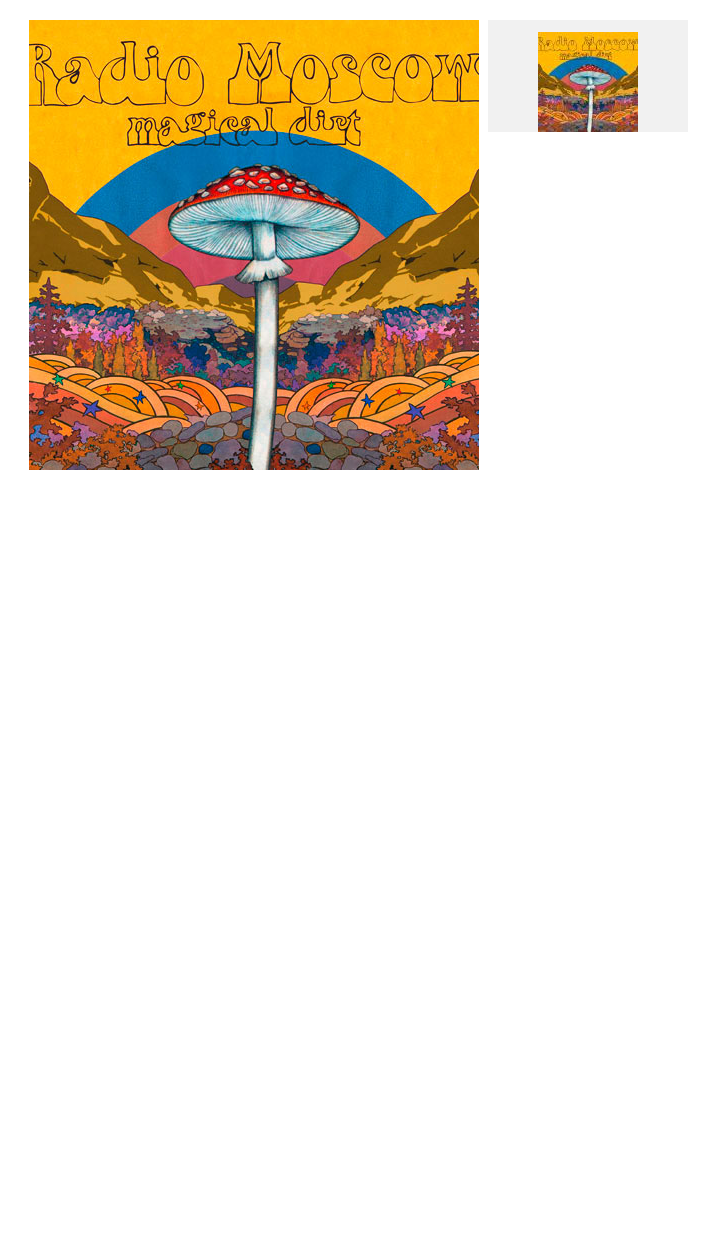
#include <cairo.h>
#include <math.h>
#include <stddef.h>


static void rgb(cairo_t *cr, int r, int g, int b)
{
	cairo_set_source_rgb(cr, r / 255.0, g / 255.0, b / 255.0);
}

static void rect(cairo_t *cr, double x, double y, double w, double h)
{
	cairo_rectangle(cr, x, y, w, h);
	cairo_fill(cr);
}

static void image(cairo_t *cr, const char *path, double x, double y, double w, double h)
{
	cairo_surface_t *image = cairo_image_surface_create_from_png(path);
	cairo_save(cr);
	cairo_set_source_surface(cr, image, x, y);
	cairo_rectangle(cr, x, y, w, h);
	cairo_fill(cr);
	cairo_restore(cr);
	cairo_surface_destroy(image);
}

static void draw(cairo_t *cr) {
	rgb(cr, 255, 255, 255);
	cairo_paint(cr);
	image(cr, "image0.png", 29, 20, 450, 450);
	rgb(cr, 241, 241, 241);
	rect(cr, 488, 20, 200, 112);
	image(cr, "image1.png", 538, 32, 100, 100);
}

int main(void) {
	cairo_surface_t *surface = cairo_image_surface_create(CAIRO_FORMAT_RGB24, 708, 1260);
	cairo_t *cr = cairo_create(surface);
	cairo_font_options_t *options = cairo_font_options_create();
	cairo_font_options_set_hint_metrics(options, CAIRO_HINT_METRICS_OFF);
	cairo_font_options_set_hint_style(options, CAIRO_HINT_STYLE_NONE);
	cairo_set_font_options(cr, options);
	cairo_set_miter_limit(cr, 4);
	draw(cr);
	cairo_surface_write_to_png(surface, "render.png");
	cairo_font_options_destroy(options);
	cairo_destroy(cr);
	cairo_surface_destroy(surface);
	return 0;
}
